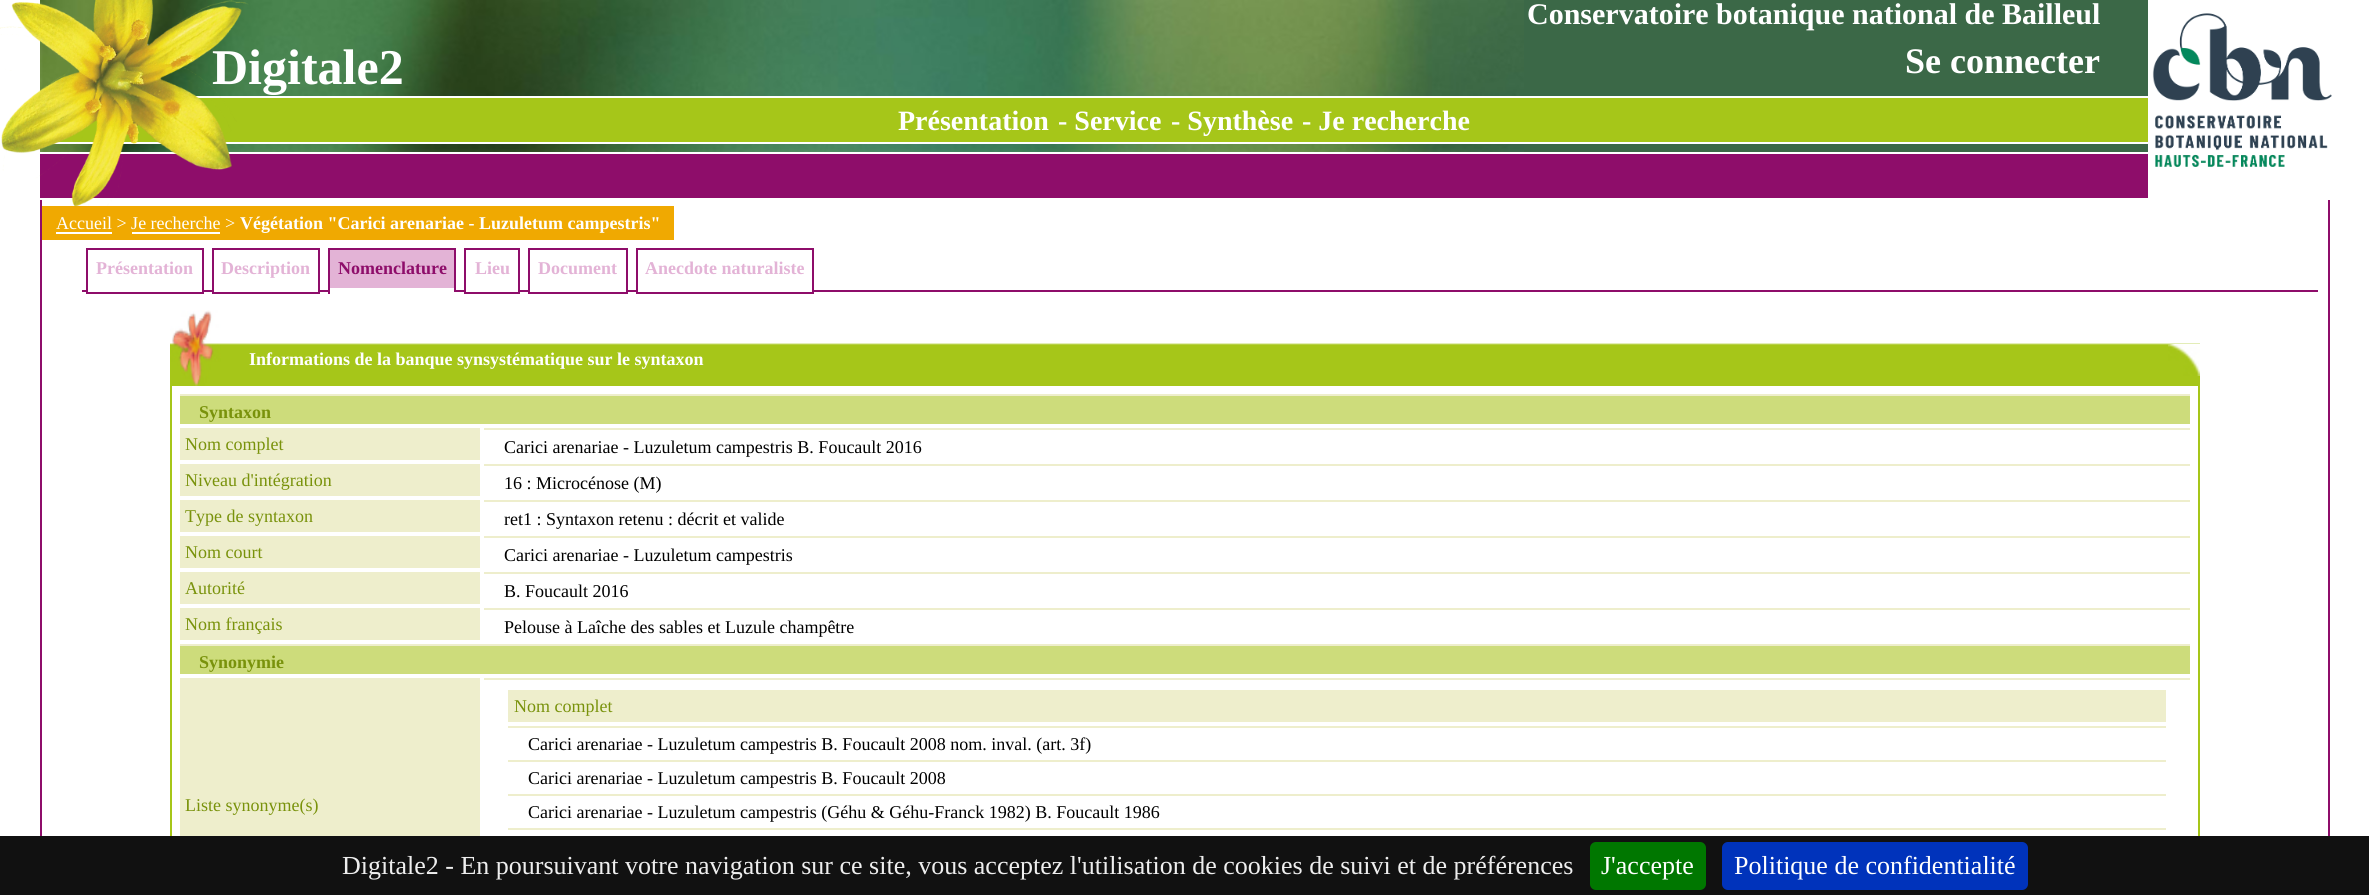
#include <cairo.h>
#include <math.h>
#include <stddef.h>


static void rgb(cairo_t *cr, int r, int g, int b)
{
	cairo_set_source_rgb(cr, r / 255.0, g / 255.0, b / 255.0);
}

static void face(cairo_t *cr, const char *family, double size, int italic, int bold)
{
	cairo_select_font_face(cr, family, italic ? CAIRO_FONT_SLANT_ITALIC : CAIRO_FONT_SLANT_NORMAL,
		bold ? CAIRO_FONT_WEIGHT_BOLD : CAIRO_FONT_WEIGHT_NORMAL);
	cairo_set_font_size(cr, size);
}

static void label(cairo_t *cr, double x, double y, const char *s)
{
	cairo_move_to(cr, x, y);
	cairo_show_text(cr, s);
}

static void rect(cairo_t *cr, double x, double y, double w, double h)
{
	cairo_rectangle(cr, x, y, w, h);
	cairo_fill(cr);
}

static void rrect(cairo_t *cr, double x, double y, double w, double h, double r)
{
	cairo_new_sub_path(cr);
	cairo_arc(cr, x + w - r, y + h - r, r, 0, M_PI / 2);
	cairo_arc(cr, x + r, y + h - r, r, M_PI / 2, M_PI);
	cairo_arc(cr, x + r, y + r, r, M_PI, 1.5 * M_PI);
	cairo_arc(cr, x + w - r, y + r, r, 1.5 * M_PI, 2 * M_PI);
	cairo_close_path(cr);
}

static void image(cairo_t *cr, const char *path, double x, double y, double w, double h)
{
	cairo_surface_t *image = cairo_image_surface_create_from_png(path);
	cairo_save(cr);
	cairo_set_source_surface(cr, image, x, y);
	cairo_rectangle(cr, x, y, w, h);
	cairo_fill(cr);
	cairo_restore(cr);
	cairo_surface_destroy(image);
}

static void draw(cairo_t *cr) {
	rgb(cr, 255, 255, 255);
	cairo_paint(cr);
	rgb(cr, 59, 104, 71);
	rect(cr, 1524, 0, 624, 152);
	image(cr, "image0.png", 40, 0, 1484, 152);
	face(cr, "Liberation Serif", 50, 0, 1);
	rgb(cr, 255, 255, 255);
	label(cr, 212, 84, "Digitale2");
	rgb(cr, 166, 198, 25);
	rect(cr, 57, 98, 2091, 44);
	rgb(cr, 255, 255, 255);
	rect(cr, 195, 96, 1953, 2);
	rect(cr, 52, 142, 2096, 2);
	rgb(cr, 142, 13, 106);
	rect(cr, 40, 154, 2108, 44);
	rect(cr, 40, 200, 2, 636);
	rgb(cr, 240, 169, 1);
	rect(cr, 42, 206, 632, 34);
	image(cr, "image1.png", 0, 0, 249, 207);
	face(cr, "Liberation Serif", 30, 0, 1);
	rgb(cr, 255, 255, 255);
	label(cr, 1527, 24, "Conservatoire botanique national de Bailleul");
	face(cr, "Liberation Serif", 36, 0, 1);
	label(cr, 1905, 73, "Se connecter");
	image(cr, "image2.png", 2148, 0, 184, 198);
	face(cr, "Liberation Serif", 28, 0, 1);
	label(cr, 898, 130, "Présentation");
	label(cr, 1058, 130, "- Service");
	label(cr, 1171, 130, "- Synthèse");
	label(cr, 1302, 130, "- Je recherche");
	rgb(cr, 142, 13, 106);
	rect(cr, 2328, 200, 2, 636);
	face(cr, "Liberation Serif", 18, 0, 0);
	rgb(cr, 255, 255, 255);
	label(cr, 56, 229, "Accueil > Je recherche >");
	rect(cr, 56, 232, 56, 2);
	face(cr, "Liberation Serif", 18, 0, 1);
	label(cr, 240, 229, "Végétation \"Carici arenariae - Luzuletum campestris\"");
	rect(cr, 132, 232, 88, 2);
	rgb(cr, 142, 13, 106);
	rect(cr, 82, 290, 2236, 2);
	rgb(cr, 255, 255, 255);
	rect(cr, 88, 290, 114, 2);
	cairo_rectangle(cr, 87, 249, 116, 44);
	rgb(cr, 142, 13, 106);
	cairo_stroke(cr);
	rgb(cr, 227, 179, 214);
	label(cr, 96, 274, "Présentation");
	rgb(cr, 255, 255, 255);
	rect(cr, 214, 290, 104, 2);
	cairo_rectangle(cr, 213, 249, 106, 44);
	rgb(cr, 142, 13, 106);
	cairo_stroke(cr);
	rgb(cr, 227, 179, 214);
	label(cr, 221, 274, "Description");
	rgb(cr, 255, 255, 255);
	rect(cr, 330, 290, 124, 2);
	rgb(cr, 142, 13, 106);
	rect(cr, 328, 248, 128, 2);
	rect(cr, 454, 248, 2, 46);
	rgb(cr, 255, 255, 255);
	rect(cr, 454, 292, 2, 2);
	rgb(cr, 142, 13, 106);
	rect(cr, 328, 248, 2, 46);
	rgb(cr, 227, 179, 214);
	rect(cr, 330, 250, 124, 38);
	rgb(cr, 142, 13, 106);
	label(cr, 338, 274, "Nomenclature");
	rgb(cr, 255, 255, 255);
	rect(cr, 466, 290, 52, 2);
	cairo_rectangle(cr, 465, 249, 54, 44);
	rgb(cr, 142, 13, 106);
	cairo_stroke(cr);
	rgb(cr, 227, 179, 214);
	label(cr, 475, 274, "Lieu");
	rgb(cr, 255, 255, 255);
	rect(cr, 530, 290, 96, 2);
	cairo_rectangle(cr, 529, 249, 98, 44);
	rgb(cr, 142, 13, 106);
	cairo_stroke(cr);
	rgb(cr, 227, 179, 214);
	label(cr, 538, 274, "Document");
	rgb(cr, 255, 255, 255);
	rect(cr, 638, 290, 174, 2);
	cairo_rectangle(cr, 637, 249, 176, 44);
	rgb(cr, 142, 13, 106);
	cairo_stroke(cr);
	rgb(cr, 227, 179, 214);
	label(cr, 645, 274, "Anecdote naturaliste");
	image(cr, "image3.png", 170, 310, 2030, 76);
	rgb(cr, 255, 255, 255);
	label(cr, 249, 365, "Informations de la banque synsystématique sur le syntaxon");
	image(cr, "image4.png", 2168, 344, 32, 32);
	rgb(cr, 166, 198, 25);
	rect(cr, 2198, 386, 2, 450);
	rect(cr, 170, 386, 2, 450);
	rgb(cr, 205, 220, 123);
	rect(cr, 180, 396, 2010, 28);
	rgb(cr, 238, 238, 204);
	rect(cr, 180, 394, 2010, 2);
	rgb(cr, 121, 146, 11);
	label(cr, 199, 418, "Syntaxon");
	rgb(cr, 238, 238, 204);
	rect(cr, 180, 428, 300, 32);
	face(cr, "Liberation Serif", 18, 0, 0);
	rgb(cr, 121, 146, 11);
	label(cr, 185, 450, "Nom complet");
	rgb(cr, 238, 238, 204);
	rect(cr, 484, 428, 1706, 2);
	rgb(cr, 0, 0, 0);
	label(cr, 504, 453, "Carici arenariae - Luzuletum campestris B. Foucault 2016");
	rgb(cr, 238, 238, 204);
	rect(cr, 180, 464, 300, 32);
	rgb(cr, 121, 146, 11);
	label(cr, 185, 486, "Niveau d'intégration");
	rgb(cr, 238, 238, 204);
	rect(cr, 484, 464, 1706, 2);
	rgb(cr, 0, 0, 0);
	label(cr, 504, 489, "16 : Microcénose (M)");
	rgb(cr, 238, 238, 204);
	rect(cr, 180, 500, 300, 32);
	rgb(cr, 121, 146, 11);
	label(cr, 185, 522, "Type de syntaxon");
	rgb(cr, 238, 238, 204);
	rect(cr, 484, 500, 1706, 2);
	rgb(cr, 0, 0, 0);
	label(cr, 504, 525, "ret1 : Syntaxon retenu : décrit et valide");
	rgb(cr, 238, 238, 204);
	rect(cr, 180, 536, 300, 32);
	rgb(cr, 121, 146, 11);
	label(cr, 185, 558, "Nom court");
	rgb(cr, 238, 238, 204);
	rect(cr, 484, 536, 1706, 2);
	rgb(cr, 0, 0, 0);
	label(cr, 504, 561, "Carici arenariae - Luzuletum campestris");
	rgb(cr, 238, 238, 204);
	rect(cr, 180, 572, 300, 32);
	rgb(cr, 121, 146, 11);
	label(cr, 185, 594, "Autorité");
	rgb(cr, 238, 238, 204);
	rect(cr, 484, 572, 1706, 2);
	rgb(cr, 0, 0, 0);
	label(cr, 504, 597, "B. Foucault 2016");
	rgb(cr, 238, 238, 204);
	rect(cr, 180, 608, 300, 32);
	rgb(cr, 121, 146, 11);
	label(cr, 185, 630, "Nom français");
	rgb(cr, 238, 238, 204);
	rect(cr, 484, 608, 1706, 2);
	rgb(cr, 0, 0, 0);
	label(cr, 504, 633, "Pelouse à Laîche des sables et Luzule champêtre");
	rgb(cr, 205, 220, 123);
	rect(cr, 180, 646, 2010, 28);
	rgb(cr, 238, 238, 204);
	rect(cr, 180, 644, 2010, 2);
	face(cr, "Liberation Serif", 18, 0, 1);
	rgb(cr, 121, 146, 11);
	label(cr, 199, 668, "Synonymie");
	rgb(cr, 238, 238, 204);
	rect(cr, 180, 678, 300, 158);
	face(cr, "Liberation Serif", 18, 0, 0);
	rgb(cr, 121, 146, 11);
	label(cr, 185, 811, "Liste synonyme(s)");
	rgb(cr, 238, 238, 204);
	rect(cr, 484, 678, 1706, 2);
	rect(cr, 508, 690, 1658, 32);
	rgb(cr, 121, 146, 11);
	label(cr, 514, 712, "Nom complet");
	rgb(cr, 238, 238, 204);
	rect(cr, 508, 726, 1658, 2);
	rgb(cr, 0, 0, 0);
	label(cr, 528, 750, "Carici arenariae - Luzuletum campestris B. Foucault 2008 nom. inval. (art. 3f)");
	rgb(cr, 238, 238, 204);
	rect(cr, 508, 760, 1658, 2);
	rgb(cr, 0, 0, 0);
	label(cr, 528, 784, "Carici arenariae - Luzuletum campestris B. Foucault 2008");
	rgb(cr, 238, 238, 204);
	rect(cr, 508, 794, 1658, 2);
	rgb(cr, 0, 0, 0);
	label(cr, 528, 818, "Carici arenariae - Luzuletum campestris (Géhu & Géhu-Franck 1982) B. Foucault 1986");
	rgb(cr, 238, 238, 204);
	rect(cr, 508, 828, 1658, 2);
	rgb(cr, 17, 17, 17);
	rect(cr, 0, 836, 2369, 59);
	face(cr, "Liberation Serif", 26, 0, 0);
	rgb(cr, 238, 238, 238);
	label(cr, 342, 874, "Digitale2 - En poursuivant votre navigation sur ce site, vous acceptez l'utilisation de cookies de suivi et de préférences");
	rgb(cr, 0, 119, 0);
	rrect(cr, 1590, 842, 116, 48, 6);
	cairo_fill(cr);
	rgb(cr, 255, 255, 255);
	label(cr, 1601, 874, "J'accepte");
	rgb(cr, 0, 51, 187);
	rrect(cr, 1722, 842, 306, 48, 6);
	cairo_fill(cr);
	rgb(cr, 255, 255, 255);
	label(cr, 1734, 874, "Politique de confidentialité");
}

int main(void) {
	cairo_surface_t *surface = cairo_image_surface_create(CAIRO_FORMAT_RGB24, 2369, 895);
	cairo_t *cr = cairo_create(surface);
	cairo_font_options_t *options = cairo_font_options_create();
	cairo_font_options_set_hint_metrics(options, CAIRO_HINT_METRICS_OFF);
	cairo_font_options_set_hint_style(options, CAIRO_HINT_STYLE_NONE);
	cairo_set_font_options(cr, options);
	cairo_set_miter_limit(cr, 4);
	draw(cr);
	cairo_surface_write_to_png(surface, "render.png");
	cairo_font_options_destroy(options);
	cairo_destroy(cr);
	cairo_surface_destroy(surface);
	return 0;
}
